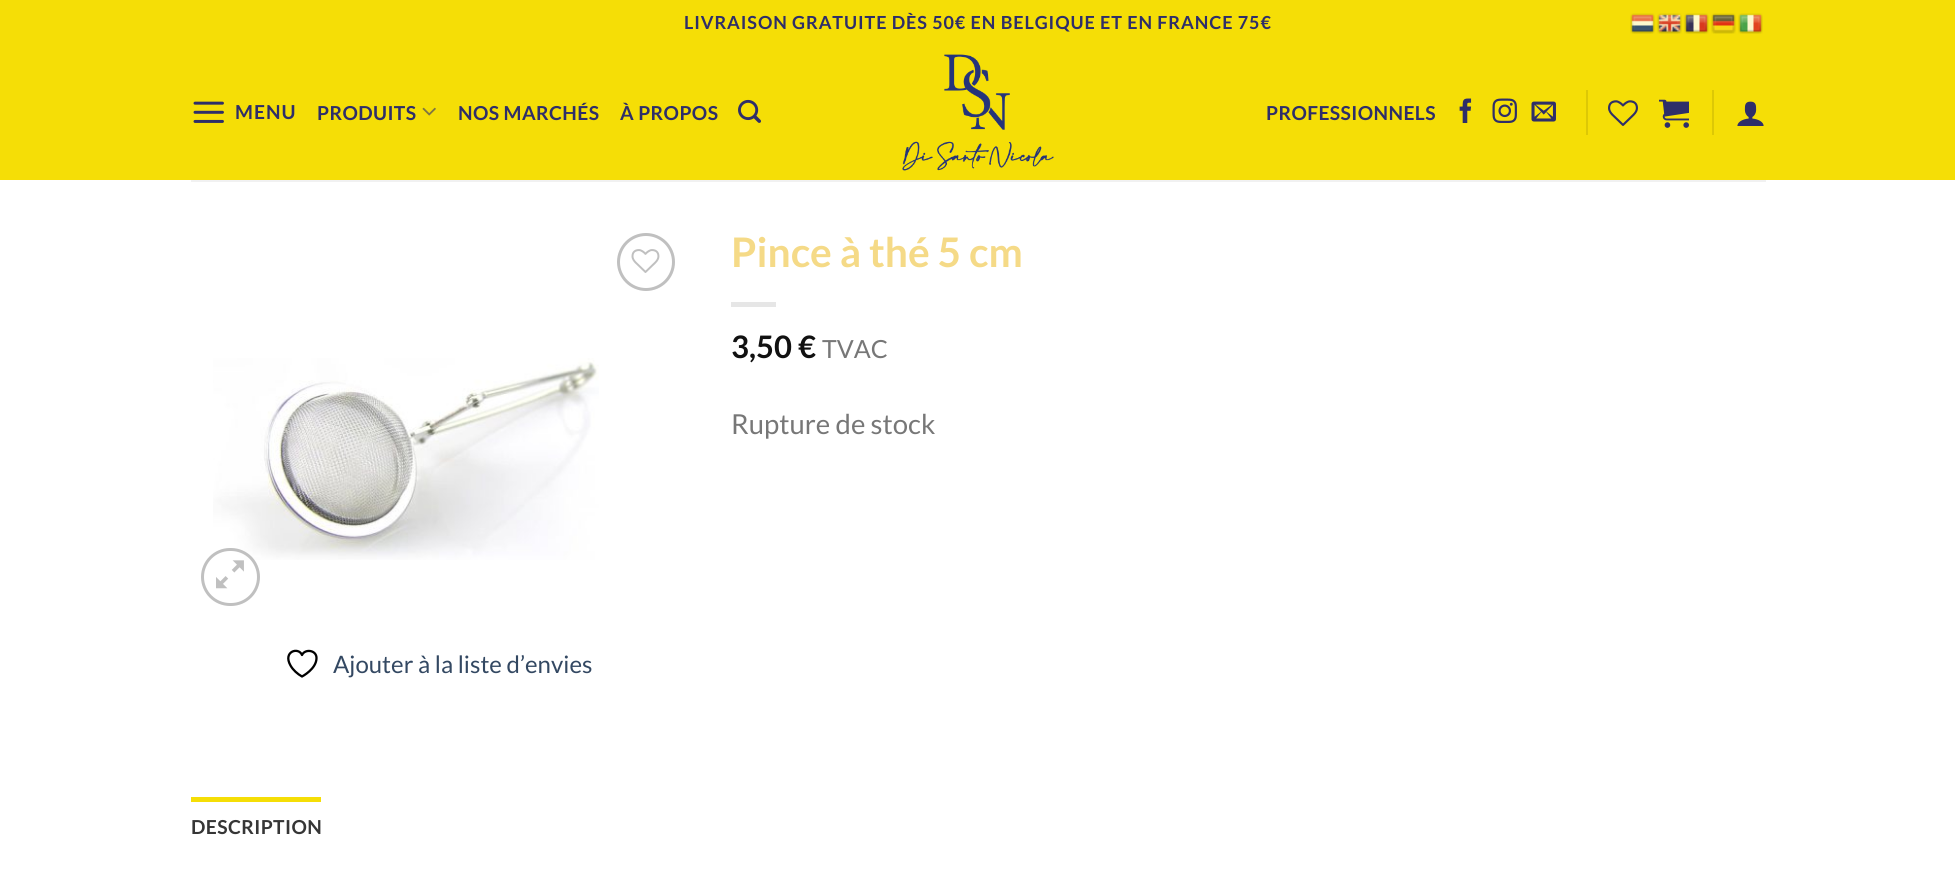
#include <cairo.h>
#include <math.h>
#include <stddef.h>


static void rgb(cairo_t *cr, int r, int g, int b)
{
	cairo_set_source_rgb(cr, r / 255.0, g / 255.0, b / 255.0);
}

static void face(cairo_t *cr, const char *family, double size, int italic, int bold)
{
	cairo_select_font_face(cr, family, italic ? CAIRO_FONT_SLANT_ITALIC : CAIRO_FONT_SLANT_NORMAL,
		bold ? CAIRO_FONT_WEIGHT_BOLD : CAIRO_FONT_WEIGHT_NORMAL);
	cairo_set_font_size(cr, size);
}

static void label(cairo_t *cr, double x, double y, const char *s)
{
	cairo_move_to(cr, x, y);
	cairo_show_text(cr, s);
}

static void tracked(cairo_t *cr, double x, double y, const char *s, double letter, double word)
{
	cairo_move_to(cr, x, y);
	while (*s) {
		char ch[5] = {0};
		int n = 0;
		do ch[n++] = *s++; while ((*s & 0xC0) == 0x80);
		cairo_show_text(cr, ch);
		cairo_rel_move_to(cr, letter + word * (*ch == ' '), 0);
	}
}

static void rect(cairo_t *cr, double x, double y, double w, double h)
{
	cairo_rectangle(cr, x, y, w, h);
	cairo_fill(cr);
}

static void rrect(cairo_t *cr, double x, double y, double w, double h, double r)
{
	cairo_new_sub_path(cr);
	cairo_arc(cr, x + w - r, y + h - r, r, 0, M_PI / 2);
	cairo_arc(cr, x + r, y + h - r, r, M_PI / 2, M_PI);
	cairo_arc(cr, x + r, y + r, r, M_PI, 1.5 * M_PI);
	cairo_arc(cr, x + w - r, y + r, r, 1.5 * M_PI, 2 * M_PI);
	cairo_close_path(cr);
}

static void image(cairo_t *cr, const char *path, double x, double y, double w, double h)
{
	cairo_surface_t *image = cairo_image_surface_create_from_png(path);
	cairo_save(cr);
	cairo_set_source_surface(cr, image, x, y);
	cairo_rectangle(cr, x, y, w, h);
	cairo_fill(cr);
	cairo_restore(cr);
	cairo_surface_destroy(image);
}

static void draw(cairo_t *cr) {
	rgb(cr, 255, 255, 255);
	cairo_paint(cr);
	rgb(cr, 245, 222, 6);
	rect(cr, 0, 0, 1955, 180);
	face(cr, "Lato", 18, 0, 1);
	rgb(cr, 46, 46, 105);
	tracked(cr, 684, 29, "LIVRAISON GRATUITE DÈS 50€ EN BELGIQUE ET EN FRANCE 75€", 0.9, 0);
	image(cr, "image0.png", 1630, 13, 25, 21);
	image(cr, "image1.png", 1657, 13, 25, 21);
	image(cr, "image2.png", 1684, 13, 25, 21);
	image(cr, "image3.png", 1711, 13, 25, 21);
	image(cr, "image4.png", 1738, 13, 25, 21);
	image(cr, "image5.png", 193, 101, 31, 22);
	face(cr, "Lato", 19.25, 0, 1);
	tracked(cr, 235, 119, "MENU", 1, 0);
	tracked(cr, 317, 120, "PRODUITS", 0.4, 0);
	image(cr, "image6.png", 422, 107, 14, 9);
	tracked(cr, 458, 120, "NOS MARCHÉS", 0.4, 0);
	tracked(cr, 620, 120, "À PROPOS", 0.4, 0);
	image(cr, "image7.png", 738, 99, 23, 24);
	image(cr, "image8.png", 902, 54, 152, 117);
	tracked(cr, 1266, 120, "PROFESSIONNELS", 0.4, 0);
	image(cr, "image9.png", 1459, 98, 13, 25);
	image(cr, "image10.png", 1492, 98, 25, 25);
	image(cr, "image11.png", 1531, 101, 25, 21);
	rgb(cr, 221, 200, 5);
	rect(cr, 1586, 90, 2, 45);
	image(cr, "image12.png", 1608, 100, 30, 26);
	image(cr, "image13.png", 1659, 99, 30, 29);
	rect(cr, 1712, 90, 2, 45);
	image(cr, "image14.png", 1737, 101, 27, 25);
	rgb(cr, 241, 241, 241);
	rect(cr, 191, 180, 1575, 2);
	face(cr, "Lato", 40.75, 0, 1);
	rgb(cr, 245, 218, 135);
	label(cr, 731, 267, "Pince à thé 5 cm");
	rgb(cr, 230, 230, 230);
	rect(cr, 731, 302, 45, 5);
	face(cr, "Lato", 31, 0, 1);
	rgb(cr, 17, 17, 17);
	label(cr, 731, 358, "3,50 €");
	face(cr, "Lato", 25, 0, 0);
	rgb(cr, 119, 119, 119);
	label(cr, 822, 358, "TVAC");
	face(cr, "Lato", 27.5, 0, 0);
	label(cr, 731, 434, "Rupture de stock");
	cairo_new_path(cr);
	cairo_arc(cr, 646, 262, 27.5, 0, 2 * M_PI);
	rgb(cr, 192, 192, 192);
	cairo_set_line_width(cr, 3);
	cairo_stroke(cr);
	image(cr, "image15.png", 631, 249, 29, 24);
	image(cr, "image16.png", 213, 358, 386, 202);
	rrect(cr, 202.5, 549.5, 56, 55, 27.5);
	cairo_stroke(cr);
	image(cr, "image17.png", 216, 560, 28, 29);
	face(cr, "Lato", 24, 0, 0);
	rgb(cr, 51, 72, 98);
	label(cr, 333, 673, "Ajouter à la liste d’envies");
	cairo_new_path(cr);
	cairo_move_to(cr, 316.5, 658);
	cairo_curve_to(cr, 316.5, 650, 305, 648.5, 302, 655);
	cairo_curve_to(cr, 298.5, 646.5, 282.5, 651.5, 290.5, 665.5);
	cairo_curve_to(cr, 293, 670, 297.5, 674, 302, 676.5);
	cairo_curve_to(cr, 302, 676.5, 316.5, 669, 316.5, 658);
	cairo_close_path(cr);
	rgb(cr, 0, 0, 0);
	cairo_set_line_width(cr, 2.3);
	cairo_set_line_cap(cr, CAIRO_LINE_CAP_ROUND);
	cairo_set_line_join(cr, CAIRO_LINE_JOIN_ROUND);
	cairo_stroke(cr);
	rgb(cr, 245, 222, 6);
	rect(cr, 191, 797, 130, 5);
	face(cr, "Lato", 19.25, 0, 1);
	rgb(cr, 54, 54, 54);
	tracked(cr, 191, 834, "DESCRIPTION", 0.4, 0);
}

int main(void) {
	cairo_surface_t *surface = cairo_image_surface_create(CAIRO_FORMAT_RGB24, 1955, 885);
	cairo_t *cr = cairo_create(surface);
	cairo_font_options_t *options = cairo_font_options_create();
	cairo_font_options_set_hint_metrics(options, CAIRO_HINT_METRICS_OFF);
	cairo_font_options_set_hint_style(options, CAIRO_HINT_STYLE_NONE);
	cairo_set_font_options(cr, options);
	cairo_set_miter_limit(cr, 4);
	draw(cr);
	cairo_surface_write_to_png(surface, "render.png");
	cairo_font_options_destroy(options);
	cairo_destroy(cr);
	cairo_surface_destroy(surface);
	return 0;
}
